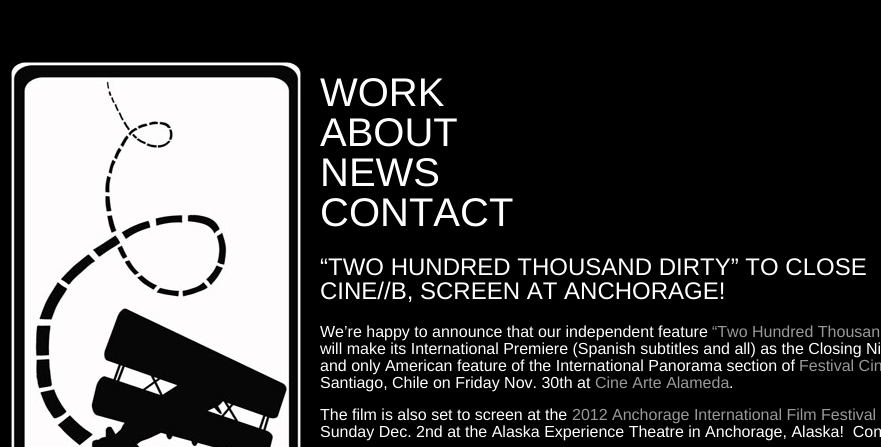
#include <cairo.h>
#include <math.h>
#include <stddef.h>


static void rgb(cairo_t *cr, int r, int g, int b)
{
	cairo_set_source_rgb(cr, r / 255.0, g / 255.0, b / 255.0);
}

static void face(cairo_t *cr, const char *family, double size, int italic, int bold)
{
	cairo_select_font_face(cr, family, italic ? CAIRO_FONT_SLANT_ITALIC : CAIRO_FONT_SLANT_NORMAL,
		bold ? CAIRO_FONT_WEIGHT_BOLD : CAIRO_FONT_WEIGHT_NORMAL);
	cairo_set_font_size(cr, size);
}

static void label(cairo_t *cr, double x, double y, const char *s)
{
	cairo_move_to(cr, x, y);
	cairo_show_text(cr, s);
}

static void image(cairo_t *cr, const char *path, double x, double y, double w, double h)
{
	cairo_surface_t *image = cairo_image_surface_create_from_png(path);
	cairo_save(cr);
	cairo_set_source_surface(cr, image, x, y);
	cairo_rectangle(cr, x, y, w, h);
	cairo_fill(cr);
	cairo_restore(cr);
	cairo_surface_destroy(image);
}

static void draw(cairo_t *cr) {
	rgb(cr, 0, 0, 0);
	cairo_paint(cr);
	image(cr, "image0.png", 10, 60, 291, 387);
	face(cr, "Liberation Sans", 40, 0, 0);
	rgb(cr, 255, 255, 255);
	label(cr, 320, 106, "WORK");
	label(cr, 320, 146, "ABOUT");
	label(cr, 320, 186, "NEWS");
	label(cr, 320, 226, "CONTACT");
	face(cr, "Liberation Sans", 24, 0, 0);
	label(cr, 320, 275, "“TWO HUNDRED THOUSAND DIRTY” TO CLOSE");
	label(cr, 320, 299, "CINE//B, SCREEN AT ANCHORAGE!");
	face(cr, "Liberation Sans", 16, 0, 0);
	label(cr, 320, 337, "We’re happy to announce that our independent feature");
	rgb(cr, 153, 153, 153);
	label(cr, 712, 337, "“Two Hundred Thousan");
	rgb(cr, 255, 255, 255);
	label(cr, 320, 354, "will make its International Premiere (Spanish subtitles and all) as the Closing Ni");
	label(cr, 320, 371, "and only American feature of the International Panorama section of");
	rgb(cr, 153, 153, 153);
	label(cr, 799, 371, "Festival Cin");
	rgb(cr, 255, 255, 255);
	label(cr, 320, 388, "Santiago, Chile on Friday Nov. 30th at");
	rgb(cr, 153, 153, 153);
	label(cr, 595, 388, "Cine Arte Alameda");
	rgb(cr, 255, 255, 255);
	label(cr, 729, 388, ".");
	label(cr, 320, 420, "The film is also set to screen at the");
	rgb(cr, 153, 153, 153);
	label(cr, 572, 420, "2012 Anchorage International Film Festival");
	rgb(cr, 255, 255, 255);
	label(cr, 320, 437, "Sunday Dec. 2nd at the Alaska Experience Theatre in Anchorage, Alaska!  Con");
}

int main(void) {
	cairo_surface_t *surface = cairo_image_surface_create(CAIRO_FORMAT_RGB24, 881, 447);
	cairo_t *cr = cairo_create(surface);
	cairo_font_options_t *options = cairo_font_options_create();
	cairo_font_options_set_hint_metrics(options, CAIRO_HINT_METRICS_OFF);
	cairo_font_options_set_hint_style(options, CAIRO_HINT_STYLE_NONE);
	cairo_set_font_options(cr, options);
	cairo_set_miter_limit(cr, 4);
	draw(cr);
	cairo_surface_write_to_png(surface, "render.png");
	cairo_font_options_destroy(options);
	cairo_destroy(cr);
	cairo_surface_destroy(surface);
	return 0;
}
